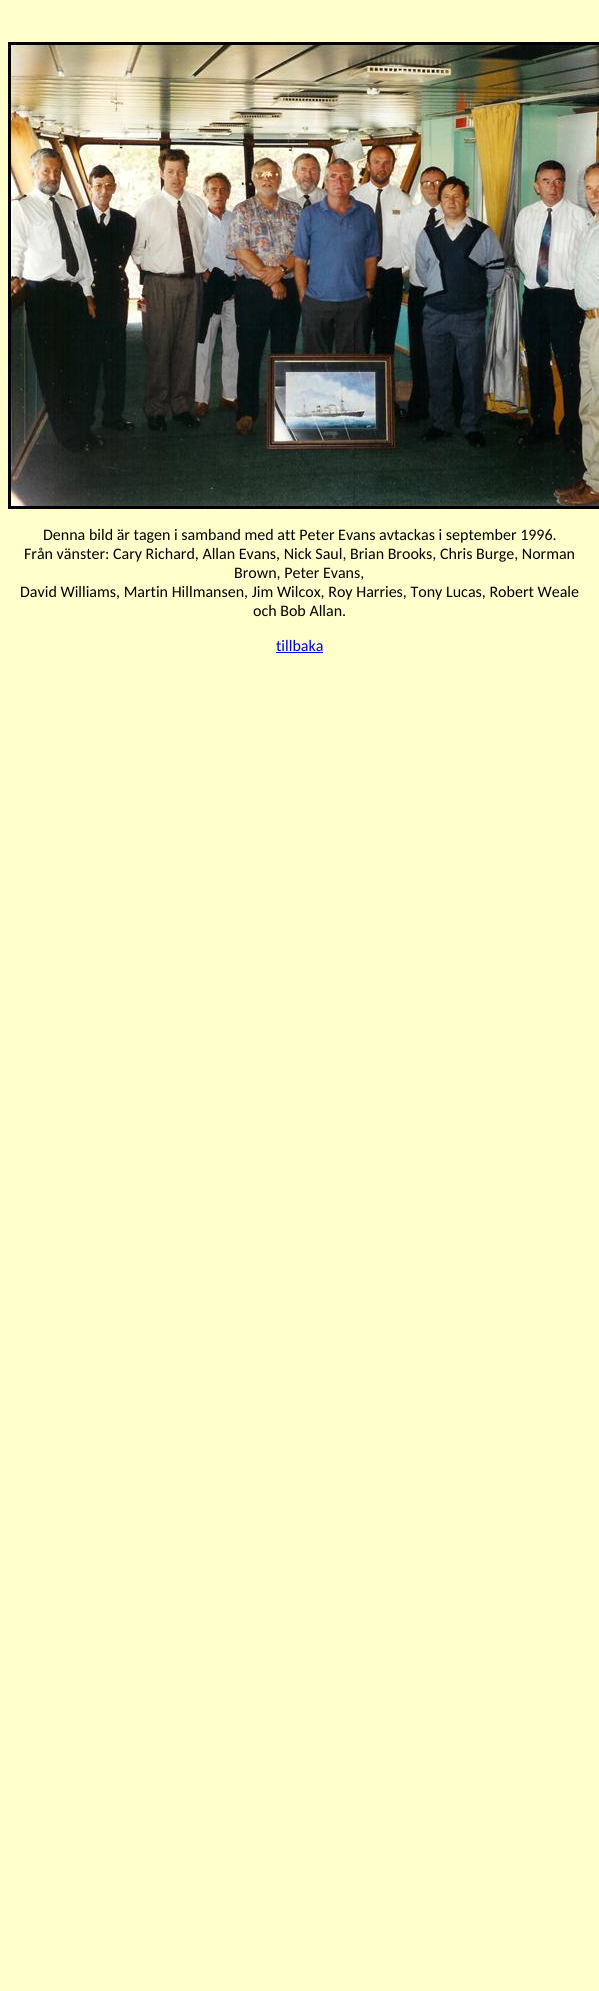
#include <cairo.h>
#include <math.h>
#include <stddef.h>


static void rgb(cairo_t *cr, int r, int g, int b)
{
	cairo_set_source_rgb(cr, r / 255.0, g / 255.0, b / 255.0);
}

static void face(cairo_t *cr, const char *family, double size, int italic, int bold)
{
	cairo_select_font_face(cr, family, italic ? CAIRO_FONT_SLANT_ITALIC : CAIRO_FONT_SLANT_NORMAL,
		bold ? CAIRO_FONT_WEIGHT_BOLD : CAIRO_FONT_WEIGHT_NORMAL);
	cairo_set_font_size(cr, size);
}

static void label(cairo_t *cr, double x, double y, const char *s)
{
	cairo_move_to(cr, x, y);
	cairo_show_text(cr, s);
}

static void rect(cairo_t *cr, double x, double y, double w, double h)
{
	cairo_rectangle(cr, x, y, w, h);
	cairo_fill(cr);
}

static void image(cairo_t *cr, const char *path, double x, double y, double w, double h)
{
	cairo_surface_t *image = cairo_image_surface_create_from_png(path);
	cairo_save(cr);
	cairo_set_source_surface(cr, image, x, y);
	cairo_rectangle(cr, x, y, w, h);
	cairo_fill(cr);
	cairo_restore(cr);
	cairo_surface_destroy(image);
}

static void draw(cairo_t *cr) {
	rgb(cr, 255, 255, 204);
	cairo_paint(cr);
	image(cr, "image0.png", 8, 42, 591, 467);
	face(cr, "Carlito", 16, 0, 0);
	rgb(cr, 0, 0, 0);
	label(cr, 43, 540, "Denna bild är tagen i samband med att Peter Evans avtackas i september 1996.");
	label(cr, 24, 559, "Från vänster: Cary Richard, Allan Evans, Nick Saul, Brian Brooks, Chris Burge, Norman");
	label(cr, 234, 578, "Brown, Peter Evans,");
	label(cr, 20, 597, "David Williams, Martin Hillmansen, Jim Wilcox, Roy Harries, Tony Lucas, Robert Weale");
	label(cr, 253, 616, "och Bob Allan.");
	rgb(cr, 0, 0, 238);
	label(cr, 276, 651, "tillbaka");
	rect(cr, 276, 652, 47, 1);
}

int main(void) {
	cairo_surface_t *surface = cairo_image_surface_create(CAIRO_FORMAT_RGB24, 599, 1991);
	cairo_t *cr = cairo_create(surface);
	cairo_font_options_t *options = cairo_font_options_create();
	cairo_font_options_set_hint_metrics(options, CAIRO_HINT_METRICS_OFF);
	cairo_font_options_set_hint_style(options, CAIRO_HINT_STYLE_NONE);
	cairo_set_font_options(cr, options);
	cairo_set_miter_limit(cr, 4);
	draw(cr);
	cairo_surface_write_to_png(surface, "render.png");
	cairo_font_options_destroy(options);
	cairo_destroy(cr);
	cairo_surface_destroy(surface);
	return 0;
}
